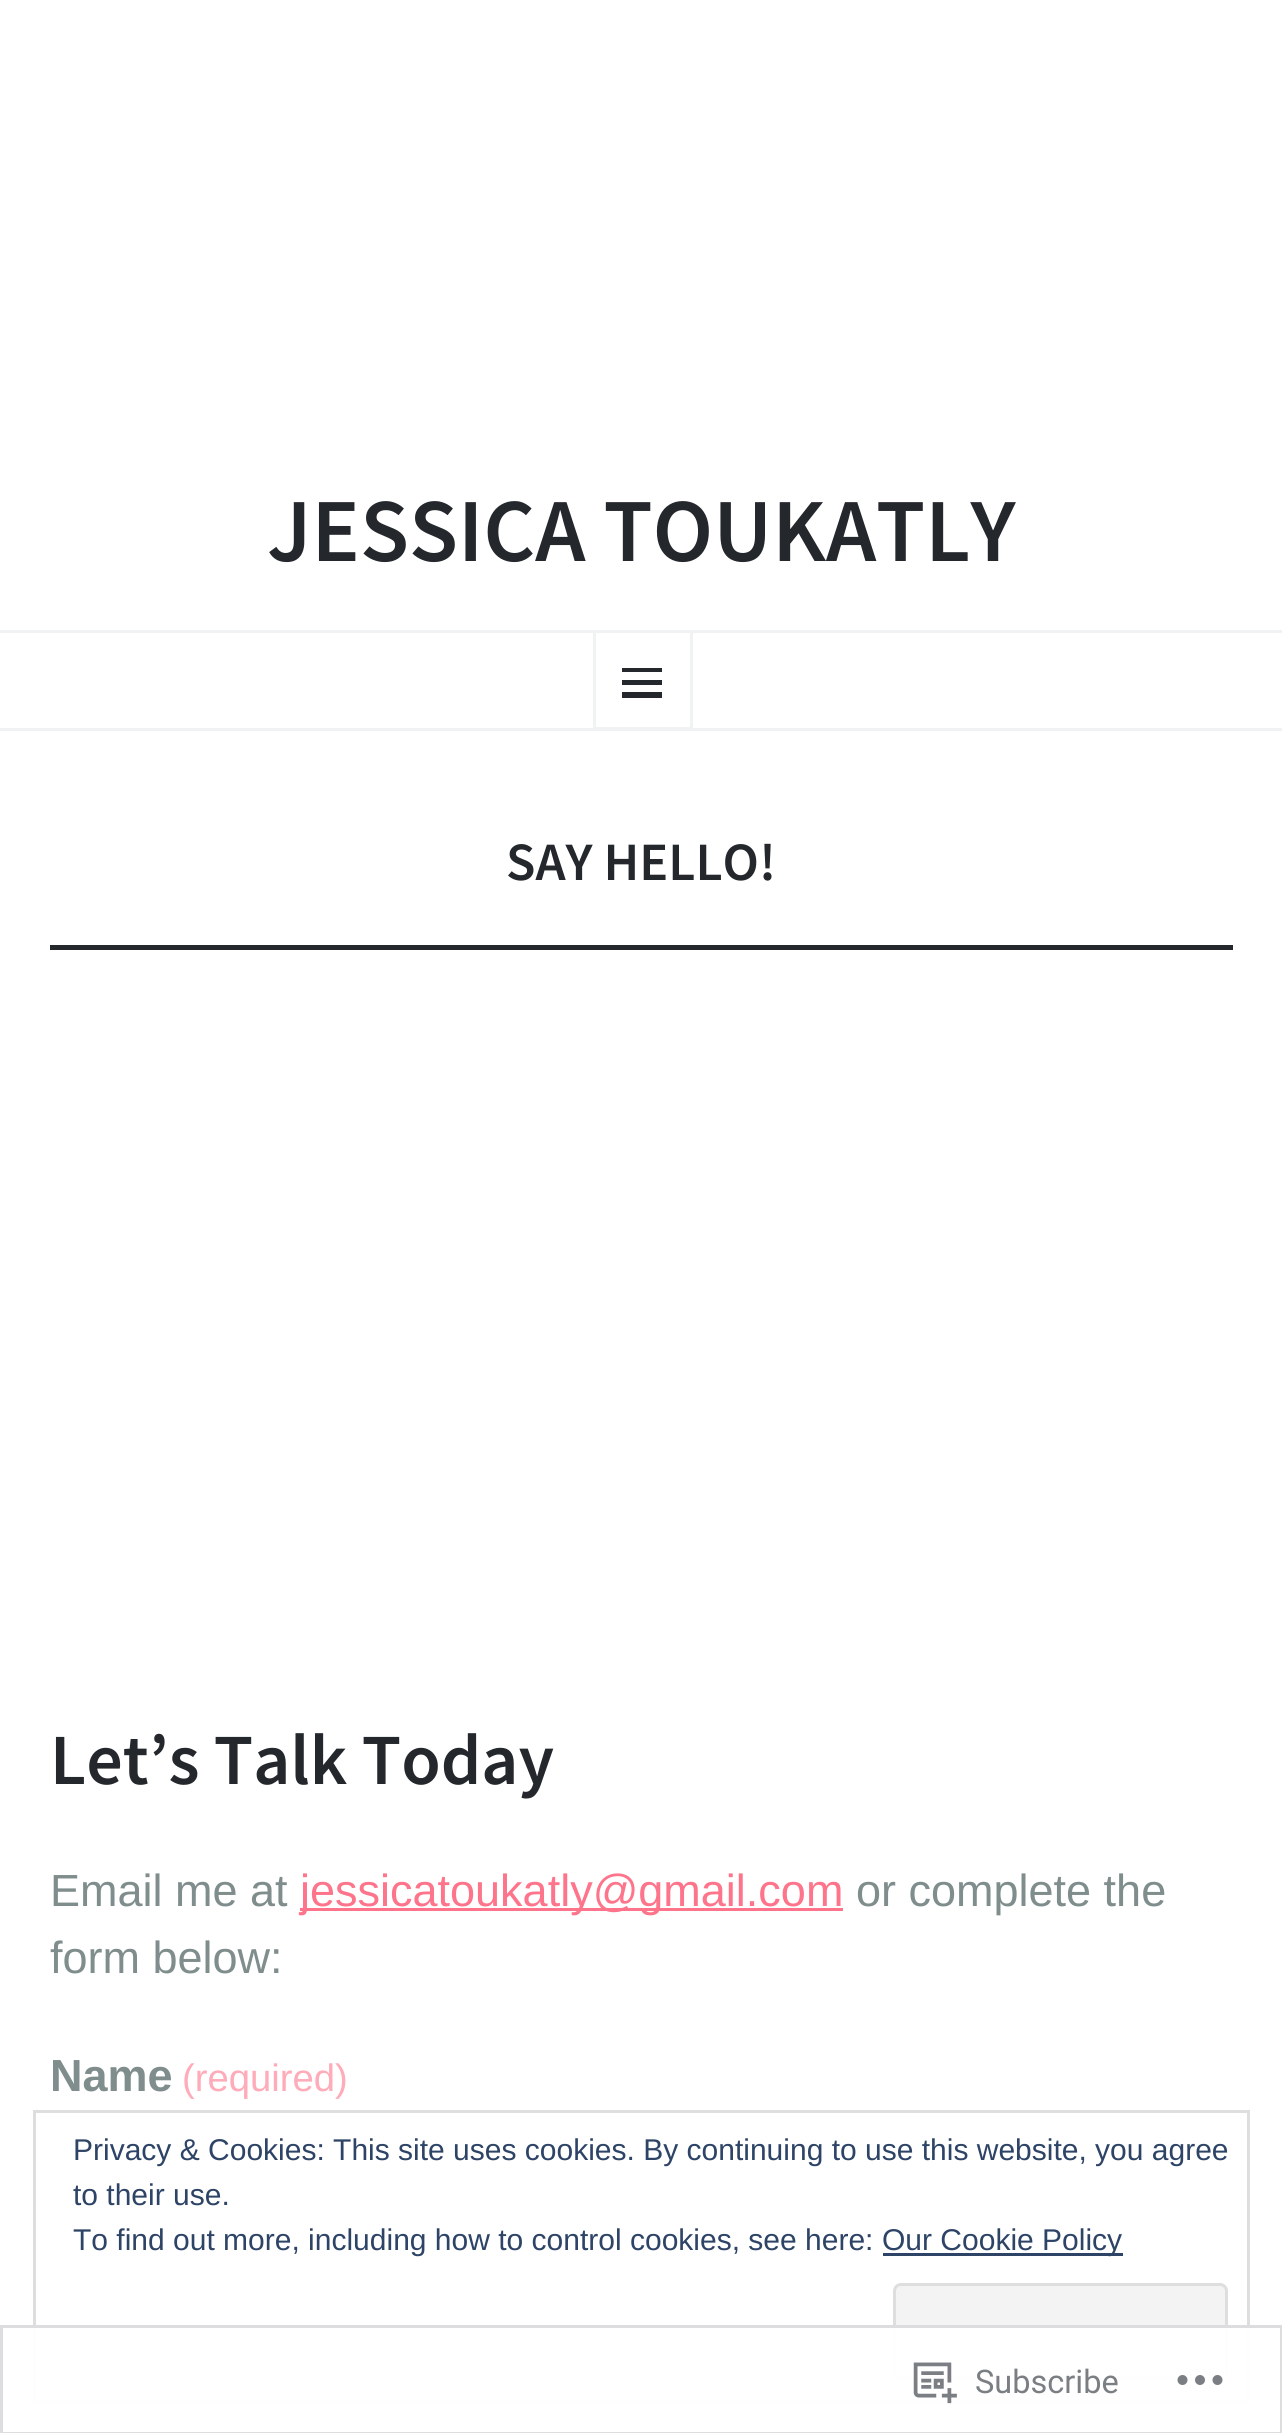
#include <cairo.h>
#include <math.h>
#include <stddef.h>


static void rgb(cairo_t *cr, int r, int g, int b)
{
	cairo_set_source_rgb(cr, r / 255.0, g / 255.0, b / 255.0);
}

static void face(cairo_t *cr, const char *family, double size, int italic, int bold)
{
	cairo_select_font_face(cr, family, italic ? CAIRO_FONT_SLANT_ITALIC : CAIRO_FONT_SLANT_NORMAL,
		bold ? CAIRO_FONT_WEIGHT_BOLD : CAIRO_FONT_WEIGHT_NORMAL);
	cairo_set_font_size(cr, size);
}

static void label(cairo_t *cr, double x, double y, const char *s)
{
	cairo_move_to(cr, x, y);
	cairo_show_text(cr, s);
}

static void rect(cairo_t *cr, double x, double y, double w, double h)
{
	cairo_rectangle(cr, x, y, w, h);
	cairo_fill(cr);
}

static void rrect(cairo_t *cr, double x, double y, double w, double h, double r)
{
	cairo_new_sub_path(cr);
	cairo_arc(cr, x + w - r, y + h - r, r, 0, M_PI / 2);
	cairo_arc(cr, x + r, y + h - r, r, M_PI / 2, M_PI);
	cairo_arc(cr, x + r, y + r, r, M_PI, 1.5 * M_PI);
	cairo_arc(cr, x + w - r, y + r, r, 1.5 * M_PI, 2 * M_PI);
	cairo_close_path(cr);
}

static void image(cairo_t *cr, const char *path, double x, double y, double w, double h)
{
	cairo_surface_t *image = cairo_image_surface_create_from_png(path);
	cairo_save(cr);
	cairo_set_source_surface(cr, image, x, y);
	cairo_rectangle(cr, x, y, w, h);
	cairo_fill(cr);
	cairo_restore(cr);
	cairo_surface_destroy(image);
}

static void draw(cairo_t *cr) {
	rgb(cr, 255, 255, 255);
	cairo_paint(cr);
	face(cr, "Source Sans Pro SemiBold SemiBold", 90, 0, 0);
	rgb(cr, 36, 40, 45);
	label(cr, 267, 561, "JESSICA TOUKATLY");
	rgb(cr, 241, 242, 243);
	rect(cr, 0, 630, 1282, 3);
	rect(cr, 0, 728, 1282, 3);
	cairo_rectangle(cr, 594.5, 631.5, 97, 97);
	cairo_set_line_width(cr, 3);
	cairo_stroke(cr);
	rgb(cr, 36, 40, 45);
	cairo_new_path(cr);
	cairo_move_to(cr, 622, 698);
	cairo_line_to(cr, 622, 692);
	cairo_line_to(cr, 662, 692);
	cairo_line_to(cr, 662, 698);
	cairo_close_path(cr);
	cairo_move_to(cr, 622, 668);
	cairo_line_to(cr, 662, 668);
	cairo_line_to(cr, 662, 672);
	cairo_line_to(cr, 622, 672);
	cairo_close_path(cr);
	cairo_move_to(cr, 622, 685);
	cairo_line_to(cr, 622, 680);
	cairo_line_to(cr, 662, 680);
	cairo_line_to(cr, 662, 685);
	cairo_close_path(cr);
	cairo_fill(cr);
	face(cr, "Source Sans Pro SemiBold SemiBold", 54, 0, 0);
	label(cr, 506, 880, "SAY HELLO!");
	rect(cr, 50, 945, 1183, 5);
	face(cr, "Source Sans Pro SemiBold SemiBold", 72, 0, 0);
	label(cr, 50, 1784, "Let’s Talk Today");
	face(cr, "Arimo", 45, 0, 0);
	rgb(cr, 127, 141, 140);
	label(cr, 50, 1906, "Email me at");
	rgb(cr, 253, 116, 139);
	rect(cr, 300, 1908, 543, 3);
	label(cr, 300, 1906, "jessicatoukatly@gmail.com");
	rgb(cr, 127, 141, 140);
	label(cr, 856, 1906, "or complete the");
	label(cr, 50, 1973, "form below:");
	face(cr, "Arimo", 45, 0, 1);
	label(cr, 50, 2091, "Name");
	face(cr, "Arimo", 38.25, 0, 0);
	rgb(cr, 254, 172, 185);
	label(cr, 182, 2091, "(required)");
	rgb(cr, 241, 242, 243);
	rect(cr, 50, 2403, 1183, 30);
	cairo_rectangle(cr, 34.5, 2111.5, 1214, 290);
	rgb(cr, 222, 222, 222);
	cairo_stroke(cr);
	face(cr, "Arimo", 30, 0, 0);
	rgb(cr, 46, 68, 103);
	label(cr, 73, 2160, "Privacy & Cookies: This site uses cookies. By continuing to use this website, you agree");
	label(cr, 73, 2205, "to their use.");
	label(cr, 73, 2250, "To find out more, including how to control cookies, see here:");
	rect(cr, 883, 2253, 240, 3);
	label(cr, 882, 2250, "Our Cookie Policy");
	rgb(cr, 243, 243, 243);
	rrect(cr, 894.5, 2284.5, 332, 94, 6.5);
	cairo_fill_preserve(cr);
	rgb(cr, 222, 222, 222);
	cairo_stroke(cr);
	cairo_set_source_rgba(cr, 1, 1, 1, 0.98);
	rect(cr, 33, 2325, 1217, 108);
	cairo_rectangle(cr, 1.5, 2326.5, 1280, 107);
	cairo_set_source_rgba(cr, 0.863, 0.863, 0.871, 0.98);
	cairo_stroke(cr);
	image(cr, "image0.png", 913, 2362, 44, 42);
	face(cr, "Roboto", 32.5, 0, 0);
	rgb(cr, 123, 127, 132);
	label(cr, 975, 2393, "Subscribe");
	image(cr, "image1.png", 1177, 2375, 46, 10);
}

int main(void) {
	cairo_surface_t *surface = cairo_image_surface_create(CAIRO_FORMAT_RGB24, 1282, 2433);
	cairo_t *cr = cairo_create(surface);
	cairo_font_options_t *options = cairo_font_options_create();
	cairo_font_options_set_hint_metrics(options, CAIRO_HINT_METRICS_OFF);
	cairo_font_options_set_hint_style(options, CAIRO_HINT_STYLE_NONE);
	cairo_set_font_options(cr, options);
	cairo_set_miter_limit(cr, 4);
	draw(cr);
	cairo_surface_write_to_png(surface, "render.png");
	cairo_font_options_destroy(options);
	cairo_destroy(cr);
	cairo_surface_destroy(surface);
	return 0;
}
